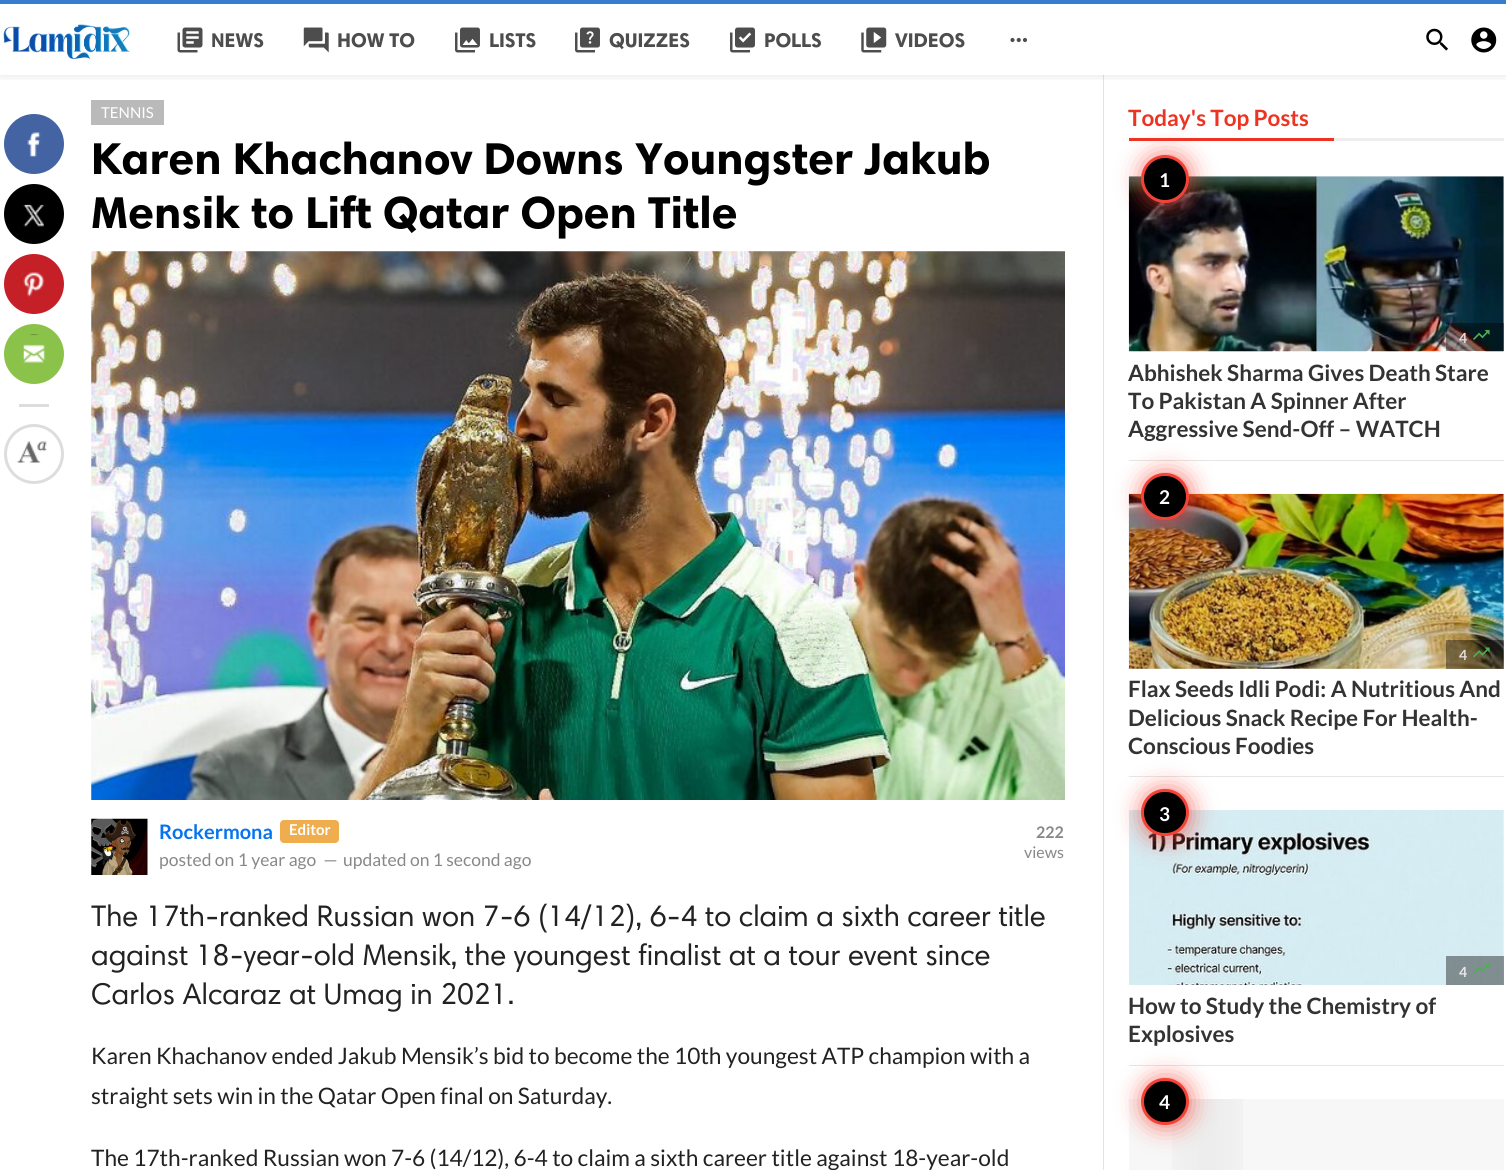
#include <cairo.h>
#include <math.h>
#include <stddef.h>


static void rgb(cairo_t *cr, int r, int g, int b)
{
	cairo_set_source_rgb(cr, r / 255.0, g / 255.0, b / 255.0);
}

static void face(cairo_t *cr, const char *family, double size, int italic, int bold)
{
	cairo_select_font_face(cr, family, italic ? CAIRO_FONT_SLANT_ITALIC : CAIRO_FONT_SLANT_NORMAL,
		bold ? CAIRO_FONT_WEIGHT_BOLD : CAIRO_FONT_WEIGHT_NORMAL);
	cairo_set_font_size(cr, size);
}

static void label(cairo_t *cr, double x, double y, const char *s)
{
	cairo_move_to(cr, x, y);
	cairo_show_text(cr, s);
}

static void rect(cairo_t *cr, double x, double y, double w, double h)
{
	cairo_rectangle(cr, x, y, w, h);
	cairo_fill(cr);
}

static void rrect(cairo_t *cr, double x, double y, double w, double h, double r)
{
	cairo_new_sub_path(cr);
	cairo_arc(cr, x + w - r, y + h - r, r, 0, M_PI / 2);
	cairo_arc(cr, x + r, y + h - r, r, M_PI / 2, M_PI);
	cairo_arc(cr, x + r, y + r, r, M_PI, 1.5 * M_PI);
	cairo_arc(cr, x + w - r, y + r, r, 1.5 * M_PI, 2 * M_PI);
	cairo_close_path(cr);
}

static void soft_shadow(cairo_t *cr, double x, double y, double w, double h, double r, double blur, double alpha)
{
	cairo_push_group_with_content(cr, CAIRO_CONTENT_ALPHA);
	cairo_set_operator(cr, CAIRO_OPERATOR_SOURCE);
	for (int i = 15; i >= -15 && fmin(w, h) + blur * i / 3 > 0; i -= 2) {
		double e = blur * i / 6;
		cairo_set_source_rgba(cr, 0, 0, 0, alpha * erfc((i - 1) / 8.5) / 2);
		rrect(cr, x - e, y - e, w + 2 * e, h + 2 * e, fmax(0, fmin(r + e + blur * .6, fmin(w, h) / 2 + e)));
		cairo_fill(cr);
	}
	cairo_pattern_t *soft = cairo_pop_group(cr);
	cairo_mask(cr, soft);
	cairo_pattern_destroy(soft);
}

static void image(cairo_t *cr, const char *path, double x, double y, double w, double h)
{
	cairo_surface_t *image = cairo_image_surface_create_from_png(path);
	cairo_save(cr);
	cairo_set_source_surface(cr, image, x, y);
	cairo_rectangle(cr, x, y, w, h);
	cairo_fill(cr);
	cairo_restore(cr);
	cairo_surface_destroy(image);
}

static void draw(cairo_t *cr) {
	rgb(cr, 255, 255, 255);
	cairo_paint(cr);
	rgb(cr, 227, 227, 227);
	rect(cr, 1103, 75, 1, 1095);
	cairo_save(cr);
	cairo_rectangle(cr, 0, 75, 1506, 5);
	cairo_clip(cr);
	rgb(cr, 0, 0, 0);
	soft_shadow(cr, 0, 1, 1506, 75, 0, 5, 0.1);
	cairo_restore(cr);
	rgb(cr, 55, 124, 206);
	rect(cr, 0, 0, 1506, 4);
	image(cr, "image0.png", 3, 24, 127, 36);
	image(cr, "image1.png", 177, 27, 26, 26);
	face(cr, "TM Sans", 20, 0, 1);
	rgb(cr, 77, 77, 77);
	label(cr, 211, 47, "NEWS");
	image(cr, "image2.png", 303, 27, 26, 26);
	label(cr, 337, 47, "HOW TO");
	image(cr, "image3.png", 455, 27, 25, 26);
	label(cr, 489, 47, "LISTS");
	image(cr, "image4.png", 575, 27, 25, 26);
	label(cr, 609, 47, "QUIZZES");
	image(cr, "image5.png", 730, 27, 25, 26);
	label(cr, 764, 47, "POLLS");
	image(cr, "image6.png", 861, 27, 26, 26);
	label(cr, 895, 47, "VIDEOS");
	image(cr, "image7.png", 1010, 37, 17, 6);
	image(cr, "image8.png", 1426, 28, 22, 23);
	image(cr, "image9.png", 1471, 27, 26, 26);
	rgb(cr, 67, 99, 162);
	cairo_arc(cr, 34, 144, 30, 0, 2 * M_PI);
	cairo_fill(cr);
	image(cr, "image10.png", 27, 132, 14, 25);
	rgb(cr, 0, 0, 0);
	cairo_arc(cr, 34, 214, 30, 0, 2 * M_PI);
	cairo_fill(cr);
	image(cr, "image11.png", 23, 204, 21, 23);
	rgb(cr, 197, 32, 39);
	cairo_arc(cr, 34, 284, 30, 0, 2 * M_PI);
	cairo_fill(cr);
	image(cr, "image12.png", 16, 269, 29, 28);
	rgb(cr, 139, 195, 74);
	cairo_arc(cr, 34, 354, 30, 0, 2 * M_PI);
	cairo_fill(cr);
	image(cr, "image13.png", 23, 334, 23, 29);
	rgb(cr, 221, 221, 221);
	rect(cr, 19, 404, 30, 3);
	cairo_arc(cr, 34, 454, 28.5, 0, 2 * M_PI);
	cairo_set_line_width(cr, 3);
	cairo_stroke(cr);
	image(cr, "image14.png", 17, 441, 30, 22);
	rgb(cr, 186, 186, 186);
	rect(cr, 91, 100, 73, 25);
	face(cr, "Lato", 15, 0, 0);
	rgb(cr, 255, 255, 255);
	label(cr, 101, 118, "TENNIS");
	face(cr, "TM Sans", 45, 0, 1);
	rgb(cr, 0, 0, 0);
	label(cr, 91, 174, "Karen Khachanov Downs Youngster Jakub");
	label(cr, 91, 228, "Mensik to Lift Qatar Open Title");
	image(cr, "image15.png", 91, 251, 974, 549);
	image(cr, "image16.png", 91, 818, 57, 57);
	face(cr, "Lato", 20, 0, 1);
	rgb(cr, 5, 116, 238);
	label(cr, 159, 839, "Rockermona");
	rgb(cr, 240, 173, 78);
	rrect(cr, 280, 820, 59, 23, 4);
	cairo_fill(cr);
	face(cr, "Lato", 15, 0, 1);
	rgb(cr, 255, 255, 255);
	label(cr, 289, 835, "Editor");
	face(cr, "Lato", 17.5, 0, 0);
	rgb(cr, 136, 136, 136);
	label(cr, 159, 866, "posted on 1 year ago");
	face(cr, "Lato", 17.5, 1, 0);
	label(cr, 322, 866, "—");
	face(cr, "Lato", 17.5, 0, 0);
	label(cr, 343, 866, "updated on 1 second ago");
	face(cr, "Lato", 16, 0, 1);
	label(cr, 1036, 838, "222");
	face(cr, "Lato", 16, 0, 0);
	label(cr, 1024, 858, "views");
	face(cr, "TM Sans", 30, 0, 0);
	rgb(cr, 34, 34, 34);
	label(cr, 91, 926, "The 17th-ranked Russian won 7-6 (14/12), 6-4 to claim a sixth career title");
	label(cr, 91, 965, "against 18-year-old Mensik, the youngest finalist at a tour event since");
	label(cr, 91, 1004, "Carlos Alcaraz at Umag in 2021.");
	face(cr, "Lato", 22.7, 0, 0);
	label(cr, 91, 1064, "Karen Khachanov ended Jakub Mensik’s bid to become the 10th youngest ATP champion with a");
	label(cr, 91, 1104, "straight sets win in the Qatar Open final on Saturday.");
	label(cr, 91, 1166, "The 17th-ranked Russian won 7-6 (14/12), 6-4 to claim a sixth career title against 18-year-old");
	rgb(cr, 238, 238, 238);
	rect(cr, 1334, 138, 170, 3);
	rgb(cr, 238, 51, 34);
	rect(cr, 1129, 138, 205, 3);
	face(cr, "Lato", 22.5, 0, 1);
	label(cr, 1128, 126, "Today's Top Posts");
	rgb(cr, 230, 230, 230);
	rect(cr, 1129, 460, 375, 1);
	rgb(cr, 247, 247, 247);
	rect(cr, 1129, 176, 375, 175);
	image(cr, "image17.png", 1128, 176, 376, 176);
	rgb(cr, 244, 67, 54);
	soft_shadow(cr, 1143, 156, 47, 48, 23.5, 12.5, 0.75);
	rgb(cr, 0, 0, 0);
	cairo_arc(cr, 1165, 179, 22.5, 0, 2 * M_PI);
	cairo_fill_preserve(cr);
	rgb(cr, 244, 67, 54);
	cairo_stroke(cr);
	face(cr, "Lato", 19, 0, 1);
	rgb(cr, 255, 255, 255);
	label(cr, 1159, 187, "1");
	cairo_set_source_rgba(cr, 0, 0, 0, 0.4);
	rect(cr, 1446, 323, 58, 28);
	face(cr, "Lato", 14, 0, 1);
	rgb(cr, 227, 221, 219);
	label(cr, 1459, 343, "4");
	image(cr, "image18.png", 1473, 330, 17, 10);
	face(cr, "Lato", 22.5, 0, 1);
	rgb(cr, 51, 51, 51);
	label(cr, 1128, 381, "Abhishek Sharma Gives Death Stare");
	label(cr, 1128, 409, "To Pakistan A Spinner After");
	label(cr, 1128, 437, "Aggressive Send-Off – WATCH");
	rgb(cr, 230, 230, 230);
	rect(cr, 1129, 776, 375, 1);
	rgb(cr, 247, 247, 247);
	rect(cr, 1129, 494, 375, 175);
	image(cr, "image19.png", 1128, 493, 376, 176);
	rgb(cr, 244, 67, 54);
	soft_shadow(cr, 1143, 474, 47, 47, 23.5, 12.5, 0.75);
	rgb(cr, 0, 0, 0);
	rrect(cr, 1142.5, 474.5, 45, 44, 22);
	cairo_fill_preserve(cr);
	rgb(cr, 244, 67, 54);
	cairo_stroke(cr);
	face(cr, "Lato", 19, 0, 1);
	rgb(cr, 255, 255, 255);
	label(cr, 1159, 504, "2");
	cairo_set_source_rgba(cr, 0, 0, 0, 0.4);
	rect(cr, 1446, 640, 58, 29);
	face(cr, "Lato", 14, 0, 1);
	rgb(cr, 227, 221, 219);
	label(cr, 1459, 660, "4");
	image(cr, "image20.png", 1473, 647, 17, 11);
	face(cr, "Lato", 22.5, 0, 1);
	rgb(cr, 51, 51, 51);
	label(cr, 1128, 697, "Flax Seeds Idli Podi: A Nutritious And");
	label(cr, 1128, 726, "Delicious Snack Recipe For Health-");
	label(cr, 1128, 754, "Conscious Foodies");
	rgb(cr, 230, 230, 230);
	rect(cr, 1129, 1065, 375, 1);
	rgb(cr, 247, 247, 247);
	rect(cr, 1503, 810, 1, 175);
	image(cr, "image21.png", 1129, 810, 375, 175);
	rgb(cr, 244, 67, 54);
	soft_shadow(cr, 1143, 790, 47, 48, 23.5, 12.5, 0.75);
	rgb(cr, 0, 0, 0);
	rrect(cr, 1142.5, 790.5, 45, 44, 22);
	cairo_fill_preserve(cr);
	rgb(cr, 244, 67, 54);
	cairo_stroke(cr);
	face(cr, "Lato", 19, 0, 1);
	rgb(cr, 255, 255, 255);
	label(cr, 1159, 821, "3");
	cairo_set_source_rgba(cr, 0, 0, 0, 0.4);
	rect(cr, 1446, 956, 58, 29);
	face(cr, "Lato", 14, 0, 1);
	rgb(cr, 230, 232, 233);
	label(cr, 1459, 977, "4");
	image(cr, "image22.png", 1473, 963, 17, 11);
	face(cr, "Lato", 22.5, 0, 1);
	rgb(cr, 51, 51, 51);
	label(cr, 1128, 1014, "How to Study the Chemistry of");
	label(cr, 1128, 1042, "Explosives");
	rgb(cr, 247, 247, 247);
	rect(cr, 1129, 1099, 375, 71);
	image(cr, "image23.png", 1172, 1099, 71, 71);
	rgb(cr, 244, 67, 54);
	soft_shadow(cr, 1143, 1079, 47, 47, 23.5, 12.5, 0.75);
	rgb(cr, 0, 0, 0);
	rrect(cr, 1142.5, 1079.5, 45, 44, 22);
	cairo_fill_preserve(cr);
	rgb(cr, 244, 67, 54);
	cairo_stroke(cr);
	face(cr, "Lato", 19, 0, 1);
	rgb(cr, 255, 255, 255);
	label(cr, 1159, 1109, "4");
}

int main(void) {
	cairo_surface_t *surface = cairo_image_surface_create(CAIRO_FORMAT_RGB24, 1506, 1170);
	cairo_t *cr = cairo_create(surface);
	cairo_font_options_t *options = cairo_font_options_create();
	cairo_font_options_set_hint_metrics(options, CAIRO_HINT_METRICS_OFF);
	cairo_font_options_set_hint_style(options, CAIRO_HINT_STYLE_NONE);
	cairo_set_font_options(cr, options);
	cairo_set_miter_limit(cr, 4);
	draw(cr);
	cairo_surface_write_to_png(surface, "render.png");
	cairo_font_options_destroy(options);
	cairo_destroy(cr);
	cairo_surface_destroy(surface);
	return 0;
}
